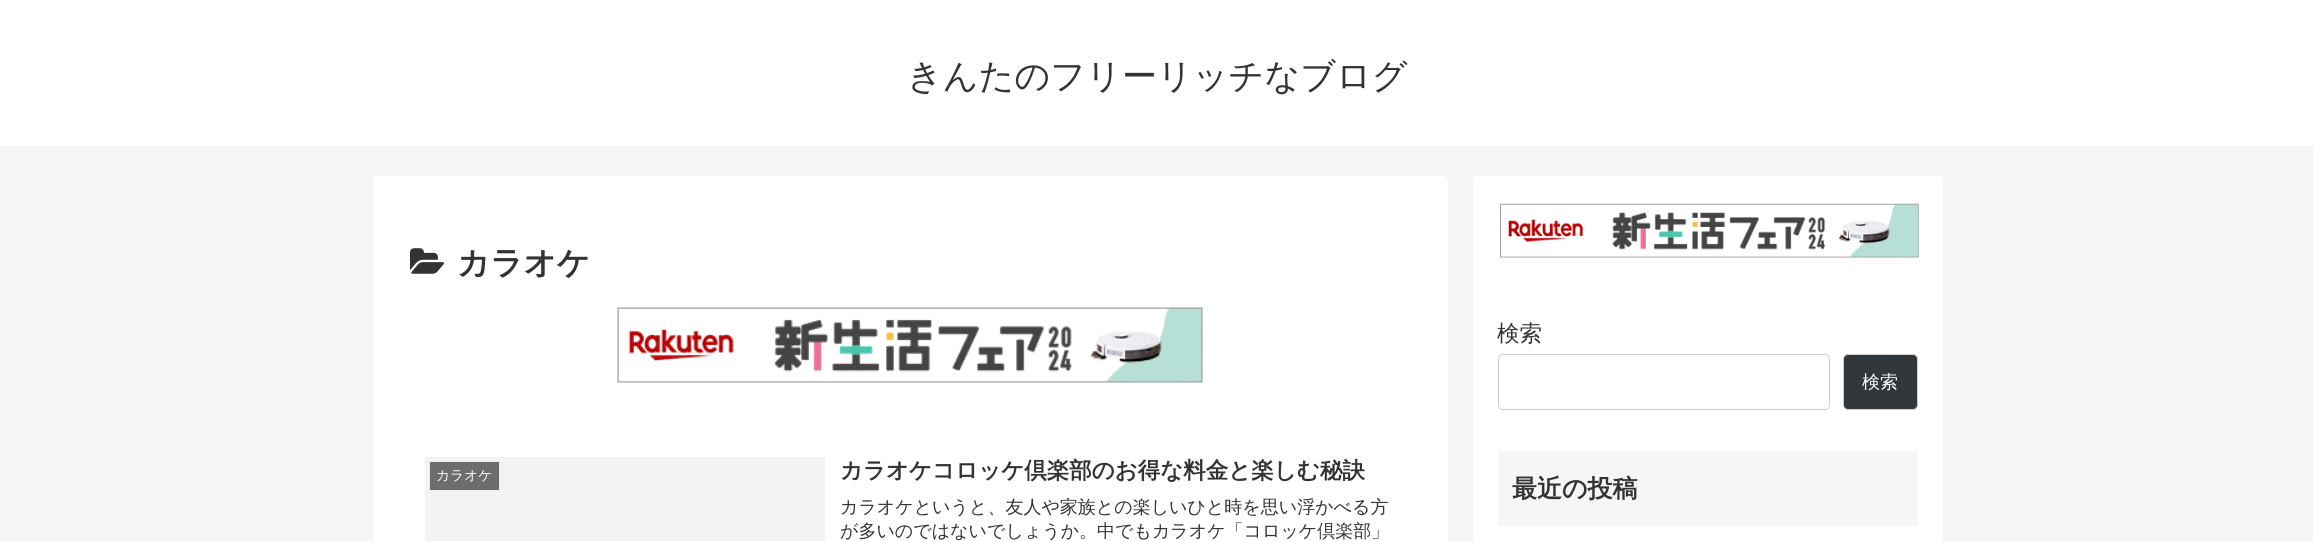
#include <cairo.h>
#include <math.h>
#include <stddef.h>


static void rgb(cairo_t *cr, int r, int g, int b)
{
	cairo_set_source_rgb(cr, r / 255.0, g / 255.0, b / 255.0);
}

static void face(cairo_t *cr, const char *family, double size, int italic, int bold)
{
	cairo_select_font_face(cr, family, italic ? CAIRO_FONT_SLANT_ITALIC : CAIRO_FONT_SLANT_NORMAL,
		bold ? CAIRO_FONT_WEIGHT_BOLD : CAIRO_FONT_WEIGHT_NORMAL);
	cairo_set_font_size(cr, size);
}

static void label(cairo_t *cr, double x, double y, const char *s)
{
	cairo_move_to(cr, x, y);
	cairo_show_text(cr, s);
}

static void rect(cairo_t *cr, double x, double y, double w, double h)
{
	cairo_rectangle(cr, x, y, w, h);
	cairo_fill(cr);
}

static void rrect(cairo_t *cr, double x, double y, double w, double h, double r)
{
	cairo_new_sub_path(cr);
	cairo_arc(cr, x + w - r, y + h - r, r, 0, M_PI / 2);
	cairo_arc(cr, x + r, y + h - r, r, M_PI / 2, M_PI);
	cairo_arc(cr, x + r, y + r, r, M_PI, 1.5 * M_PI);
	cairo_arc(cr, x + w - r, y + r, r, 1.5 * M_PI, 2 * M_PI);
	cairo_close_path(cr);
}

static void image(cairo_t *cr, const char *path, double x, double y, double w, double h)
{
	cairo_surface_t *image = cairo_image_surface_create_from_png(path);
	cairo_save(cr);
	cairo_set_source_surface(cr, image, x, y);
	cairo_rectangle(cr, x, y, w, h);
	cairo_fill(cr);
	cairo_restore(cr);
	cairo_surface_destroy(image);
}

static void draw(cairo_t *cr) {
	rgb(cr, 244, 245, 247);
	cairo_paint(cr);
	rgb(cr, 255, 255, 255);
	rect(cr, 0, 0, 2313, 146);
	face(cr, "WenQuanYi Zen Hei Medium", 35, 0, 0);
	rgb(cr, 51, 51, 51);
	label(cr, 907, 88, "きんたのフリーリッチなブログ");
	rgb(cr, 255, 255, 255);
	rrect(cr, 373, 176, 1075, 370, 5);
	cairo_fill(cr);
	image(cr, "image0.png", 410, 248, 35, 26);
	face(cr, "WenQuanYi Zen Hei", 32.5, 0, 1);
	rgb(cr, 51, 51, 51);
	label(cr, 457, 274, "カラオケ");
	image(cr, "image1.png", 617, 307, 586, 76);
	rgb(cr, 243, 243, 243);
	rect(cr, 425, 457, 400, 84);
	rgb(cr, 109, 109, 109);
	cairo_rectangle(cr, 429.5, 461.5, 70, 29);
	cairo_fill_preserve(cr);
	rgb(cr, 238, 238, 238);
	cairo_set_line_width(cr, 1);
	cairo_stroke(cr);
	face(cr, "WenQuanYi Zen Hei Medium", 13.75, 0, 0);
	rgb(cr, 255, 255, 255);
	label(cr, 436, 480, "カラオケ");
	face(cr, "WenQuanYi Zen Hei", 22.5, 0, 1);
	rgb(cr, 51, 51, 51);
	label(cr, 840, 478, "カラオケコロッケ倶楽部のお得な料金と楽しむ秘訣");
	face(cr, "WenQuanYi Zen Hei Medium", 18, 0, 0);
	label(cr, 840, 513, "カラオケというと、友人や家族との楽しいひと時を思い浮かべる方");
	label(cr, 840, 537, "が多いのではないでしょうか。中でもカラオケ「コロッケ倶楽部」");
	rgb(cr, 255, 255, 255);
	rrect(cr, 1473, 176, 470, 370, 5);
	cairo_fill(cr);
	image(cr, "image2.png", 1500, 203, 419, 55);
	face(cr, "WenQuanYi Zen Hei Medium", 22.5, 0, 0);
	rgb(cr, 51, 51, 51);
	label(cr, 1497, 341, "検索");
	rrect(cr, 1498.5, 354.5, 331, 55, 4.5);
	rgb(cr, 204, 204, 204);
	cairo_stroke(cr);
	rgb(cr, 50, 55, 60);
	rrect(cr, 1843.5, 354.5, 74, 55, 4.5);
	cairo_fill_preserve(cr);
	rgb(cr, 204, 204, 204);
	cairo_stroke(cr);
	face(cr, "WenQuanYi Zen Hei Medium", 18, 0, 0);
	rgb(cr, 255, 255, 255);
	label(cr, 1862, 388, "検索");
	rgb(cr, 245, 246, 247);
	rrect(cr, 1498, 451, 420, 75, 2.5);
	cairo_fill(cr);
	face(cr, "WenQuanYi Zen Hei", 25, 0, 1);
	rgb(cr, 51, 51, 51);
	label(cr, 1512, 497, "最近の投稿");
}

int main(void) {
	cairo_surface_t *surface = cairo_image_surface_create(CAIRO_FORMAT_RGB24, 2313, 541);
	cairo_t *cr = cairo_create(surface);
	cairo_font_options_t *options = cairo_font_options_create();
	cairo_font_options_set_hint_metrics(options, CAIRO_HINT_METRICS_OFF);
	cairo_font_options_set_hint_style(options, CAIRO_HINT_STYLE_NONE);
	cairo_set_font_options(cr, options);
	cairo_set_miter_limit(cr, 4);
	draw(cr);
	cairo_surface_write_to_png(surface, "render.png");
	cairo_font_options_destroy(options);
	cairo_destroy(cr);
	cairo_surface_destroy(surface);
	return 0;
}
